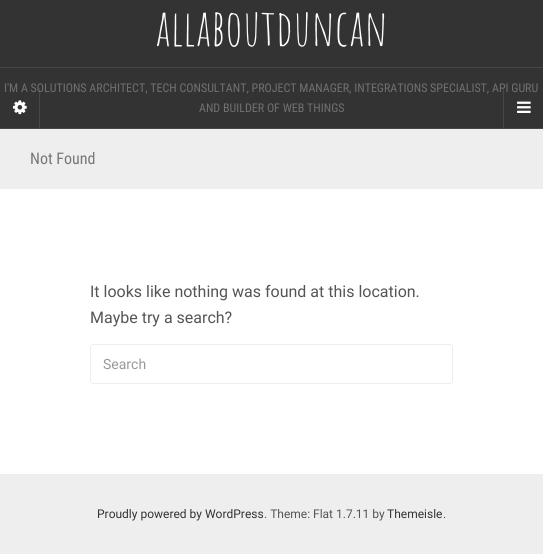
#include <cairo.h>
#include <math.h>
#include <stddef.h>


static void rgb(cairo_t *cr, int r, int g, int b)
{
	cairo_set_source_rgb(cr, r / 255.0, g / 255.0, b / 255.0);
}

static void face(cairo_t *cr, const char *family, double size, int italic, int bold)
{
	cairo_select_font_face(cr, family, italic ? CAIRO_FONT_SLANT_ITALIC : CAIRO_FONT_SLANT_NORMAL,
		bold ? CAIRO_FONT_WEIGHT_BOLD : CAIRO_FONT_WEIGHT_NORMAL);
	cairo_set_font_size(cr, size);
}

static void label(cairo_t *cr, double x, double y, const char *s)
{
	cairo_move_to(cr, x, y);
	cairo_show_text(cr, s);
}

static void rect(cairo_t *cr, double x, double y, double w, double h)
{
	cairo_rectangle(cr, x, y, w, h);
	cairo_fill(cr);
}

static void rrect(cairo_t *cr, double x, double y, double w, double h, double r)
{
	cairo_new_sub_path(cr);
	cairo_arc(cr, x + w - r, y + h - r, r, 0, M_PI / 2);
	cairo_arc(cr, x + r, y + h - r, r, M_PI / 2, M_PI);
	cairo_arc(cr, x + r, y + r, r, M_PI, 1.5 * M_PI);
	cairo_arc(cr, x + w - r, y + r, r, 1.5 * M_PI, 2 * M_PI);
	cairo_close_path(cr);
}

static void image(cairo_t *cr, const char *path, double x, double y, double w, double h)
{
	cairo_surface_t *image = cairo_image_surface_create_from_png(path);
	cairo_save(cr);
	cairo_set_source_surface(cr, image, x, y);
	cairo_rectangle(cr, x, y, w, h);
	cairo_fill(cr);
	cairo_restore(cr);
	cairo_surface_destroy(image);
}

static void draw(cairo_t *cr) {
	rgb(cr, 51, 51, 51);
	cairo_paint(cr);
	rgb(cr, 71, 71, 71);
	rect(cr, 0, 128, 543, 1);
	rect(cr, 0, 67, 543, 1);
	face(cr, "Amatic SC", 50, 0, 0);
	rgb(cr, 255, 255, 255);
	label(cr, 155, 46, "allaboutduncan");
	rgb(cr, 71, 71, 71);
	rect(cr, 39, 88, 1, 40);
	rect(cr, 503, 88, 1, 40);
	face(cr, "Roboto Condensed", 12, 0, 0);
	rgb(cr, 112, 112, 112);
	label(cr, 4, 92, "I'M A SOLUTIONS ARCHITECT, TECH CONSULTANT, PROJECT MANAGER, INTEGRATIONS SPECIALIST, API GURU");
	label(cr, 199, 112, "AND BUILDER OF WEB THINGS");
	image(cr, "image0.png", 13, 100, 14, 15);
	image(cr, "image1.png", 517, 101, 14, 12);
	rgb(cr, 255, 255, 255);
	rect(cr, 0, 189, 543, 285);
	rgb(cr, 238, 238, 238);
	rect(cr, 0, 129, 543, 60);
	face(cr, "Roboto Condensed", 16, 0, 0);
	rgb(cr, 119, 119, 119);
	label(cr, 30, 164, "Not Found");
	rgb(cr, 238, 238, 238);
	rect(cr, 0, 474, 543, 80);
	face(cr, "Roboto", 16, 0, 0);
	rgb(cr, 85, 85, 85);
	label(cr, 90, 297, "It looks like nothing was found at this location.");
	label(cr, 90, 323, "Maybe try a search?");
	rrect(cr, 90.5, 344.5, 362, 39, 2.5);
	rgb(cr, 238, 238, 238);
	cairo_set_line_width(cr, 1);
	cairo_stroke(cr);
	face(cr, "Roboto", 14, 0, 0);
	rgb(cr, 153, 153, 153);
	label(cr, 103, 369, "Search");
	face(cr, "Roboto", 12, 0, 0);
	rgb(cr, 51, 51, 51);
	label(cr, 97, 518, "Proudly powered by WordPress");
	rgb(cr, 85, 85, 85);
	label(cr, 264, 518, ". Theme: Flat 1.7.11 by");
	rgb(cr, 51, 51, 51);
	label(cr, 387, 518, "Themeisle");
	rgb(cr, 85, 85, 85);
	label(cr, 443, 518, ".");
}

int main(void) {
	cairo_surface_t *surface = cairo_image_surface_create(CAIRO_FORMAT_RGB24, 543, 554);
	cairo_t *cr = cairo_create(surface);
	cairo_font_options_t *options = cairo_font_options_create();
	cairo_font_options_set_hint_metrics(options, CAIRO_HINT_METRICS_OFF);
	cairo_font_options_set_hint_style(options, CAIRO_HINT_STYLE_NONE);
	cairo_set_font_options(cr, options);
	cairo_set_miter_limit(cr, 4);
	draw(cr);
	cairo_surface_write_to_png(surface, "render.png");
	cairo_font_options_destroy(options);
	cairo_destroy(cr);
	cairo_surface_destroy(surface);
	return 0;
}
